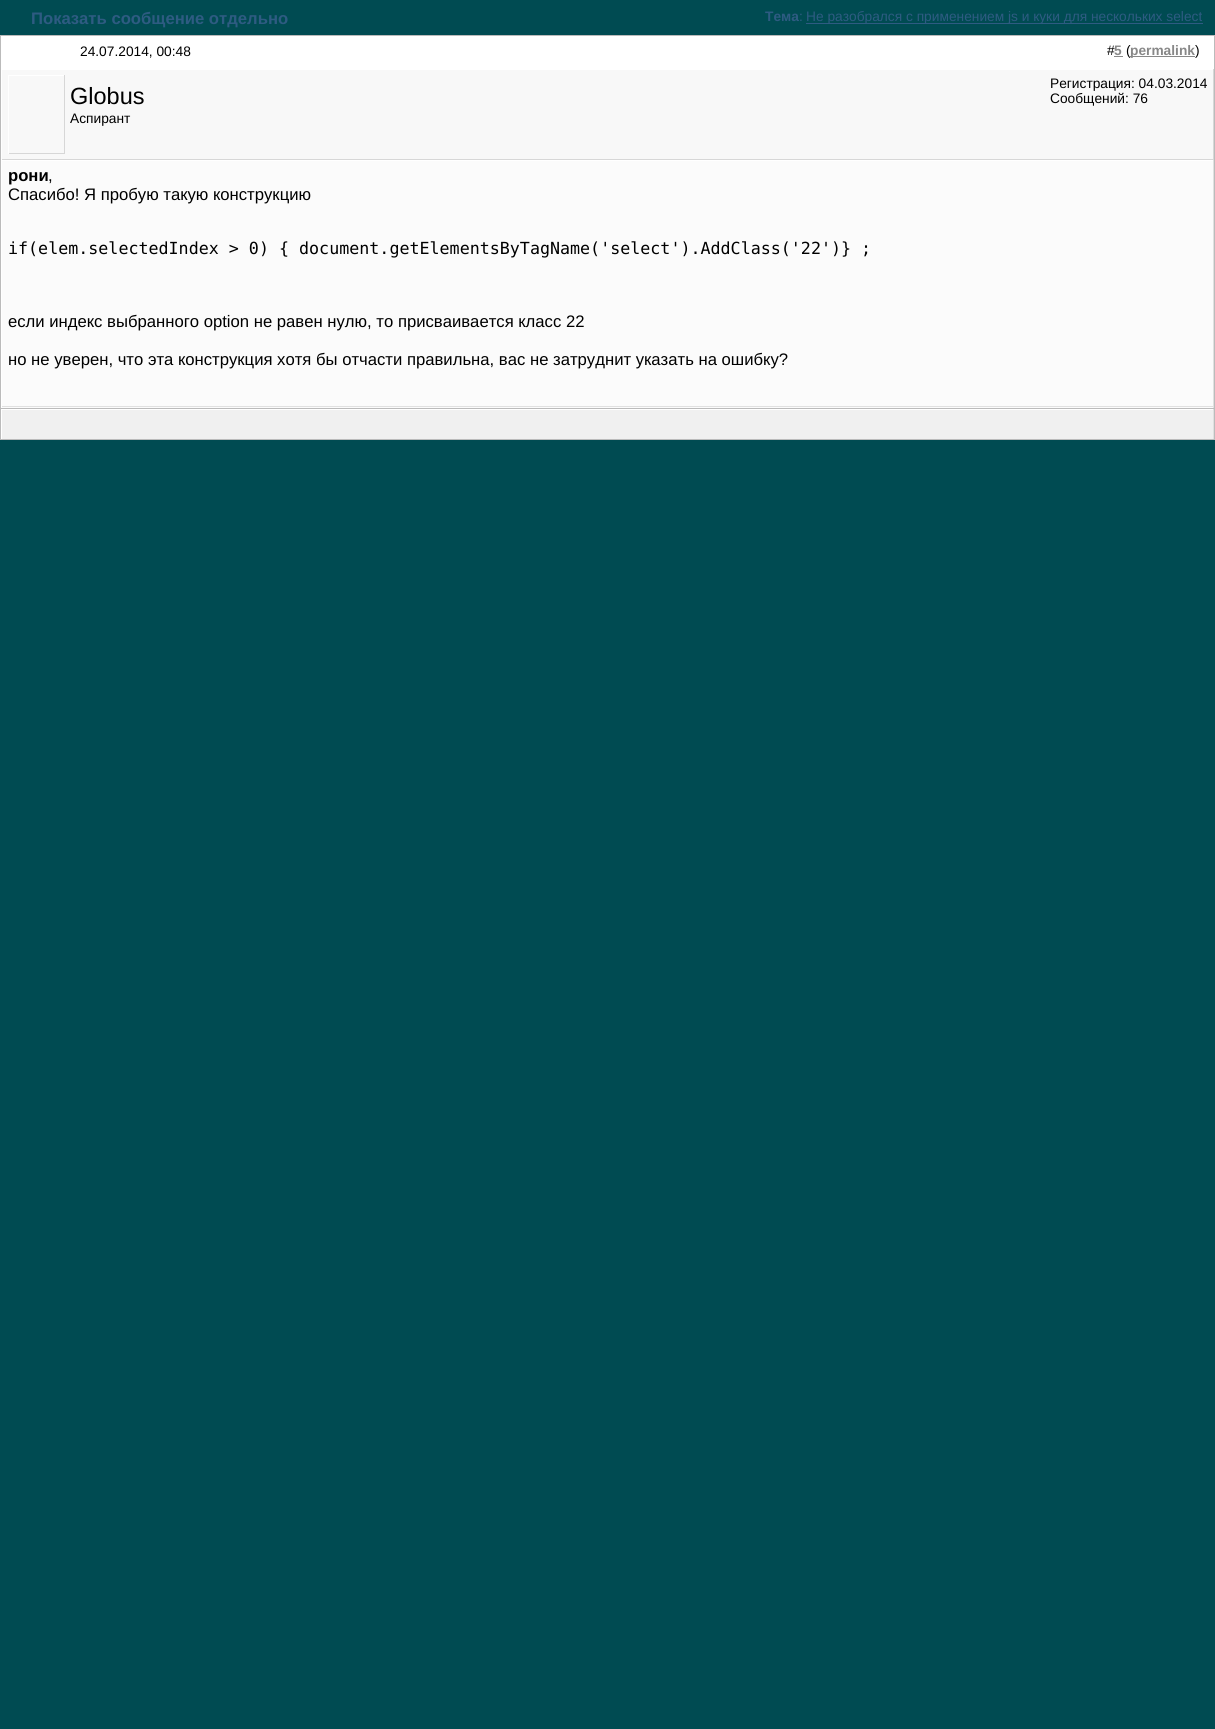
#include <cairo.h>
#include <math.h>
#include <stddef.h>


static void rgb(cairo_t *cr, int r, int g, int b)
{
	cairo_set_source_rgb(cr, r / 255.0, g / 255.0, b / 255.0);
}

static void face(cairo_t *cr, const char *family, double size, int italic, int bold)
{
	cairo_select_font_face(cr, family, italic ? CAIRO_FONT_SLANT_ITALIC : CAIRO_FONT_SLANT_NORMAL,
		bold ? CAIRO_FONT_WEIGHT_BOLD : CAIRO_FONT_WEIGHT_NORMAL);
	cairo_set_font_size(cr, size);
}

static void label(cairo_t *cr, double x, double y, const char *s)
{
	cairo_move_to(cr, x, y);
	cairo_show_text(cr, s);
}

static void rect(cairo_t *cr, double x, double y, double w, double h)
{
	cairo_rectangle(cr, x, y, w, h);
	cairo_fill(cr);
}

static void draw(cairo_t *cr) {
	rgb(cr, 0, 75, 82);
	cairo_paint(cr);
	face(cr, "Liberation Sans", 16.67, 0, 1);
	rgb(cr, 46, 91, 130);
	label(cr, 31, 24, "Показать сообщение отдельно");
	face(cr, "Liberation Sans", 13.75, 0, 1);
	label(cr, 765, 21, "Тема");
	face(cr, "Liberation Sans", 13.75, 0, 0);
	label(cr, 799, 21, ":");
	rect(cr, 806, 23, 397, 1);
	label(cr, 806, 21, "Не разобрался с применением js и куки для нескольких select");
	cairo_rectangle(cr, 0.5, 35.5, 1214, 373);
	rgb(cr, 187, 187, 187);
	cairo_set_line_width(cr, 1);
	cairo_stroke(cr);
	rgb(cr, 255, 255, 255);
	rect(cr, 1, 36, 1213, 34);
	rgb(cr, 0, 0, 0);
	label(cr, 80, 56, "24.07.2014, 00:48");
	label(cr, 1107, 55, "#");
	face(cr, "Liberation Sans", 13.75, 0, 1);
	rgb(cr, 136, 136, 136);
	label(cr, 1114, 55, "5");
	rect(cr, 1114, 56, 9, 1);
	face(cr, "Liberation Sans", 13.75, 0, 0);
	rgb(cr, 0, 0, 0);
	label(cr, 1126, 55, "(");
	rgb(cr, 136, 136, 136);
	rect(cr, 1130, 56, 65, 1);
	face(cr, "Liberation Sans", 13.75, 0, 1);
	label(cr, 1130, 55, "permalink");
	face(cr, "Liberation Sans", 13.75, 0, 0);
	rgb(cr, 0, 0, 0);
	label(cr, 1195, 55, ")");
	rgb(cr, 248, 248, 248);
	rect(cr, 2, 70, 1211, 89);
	rgb(cr, 215, 215, 215);
	rect(cr, 1213, 69, 1, 91);
	rect(cr, 1, 159, 1213, 1);
	rgb(cr, 255, 255, 255);
	rect(cr, 1, 69, 1, 91);
	rect(cr, 8, 75, 57, 1);
	rgb(cr, 215, 215, 215);
	rect(cr, 64, 75, 1, 79);
	rect(cr, 8, 153, 57, 1);
	rgb(cr, 255, 255, 255);
	rect(cr, 8, 75, 1, 79);
	face(cr, "Liberation Sans", 23.5, 0, 0);
	rgb(cr, 0, 0, 0);
	label(cr, 70, 104, "Globus");
	face(cr, "Liberation Sans", 13.75, 0, 0);
	label(cr, 70, 123, "Аспирант");
	label(cr, 1050, 88, "Регистрация: 04.03.2014");
	label(cr, 1050, 103, "Сообщений: 76");
	rgb(cr, 251, 251, 251);
	rect(cr, 2, 161, 1211, 247);
	rgb(cr, 255, 255, 255);
	rect(cr, 1, 160, 1213, 1);
	rgb(cr, 224, 224, 224);
	rect(cr, 1213, 160, 1, 248);
	rect(cr, 1, 406, 1213, 1);
	rgb(cr, 255, 255, 255);
	rect(cr, 1, 160, 1, 248);
	face(cr, "Liberation Sans", 16.67, 0, 1);
	rgb(cr, 0, 0, 0);
	label(cr, 8, 181, "рони");
	face(cr, "Liberation Sans", 16.67, 0, 0);
	label(cr, 48, 181, ",");
	label(cr, 8, 200, "Спасибо! Я пробую такую конструкцию");
	face(cr, "DejaVu Sans Mono", 16.67, 0, 0);
	label(cr, 8, 254, "if(elem.selectedIndex > 0) { document.getElementsByTagName('select').AddClass('22')} ;");
	face(cr, "Liberation Sans", 16.67, 0, 0);
	label(cr, 8, 327, "если индекс выбранного option не равен нулю, то присваивается класс 22");
	label(cr, 8, 365, "но не уверен, что эта конструкция хотя бы отчасти правильна, вас не затруднит указать на ошибку?");
	rgb(cr, 187, 187, 187);
	rect(cr, 1214, 409, 1, 31);
	rect(cr, 0, 439, 1215, 1);
	rect(cr, 0, 409, 1, 31);
	rgb(cr, 240, 240, 240);
	rect(cr, 2, 410, 1211, 29);
	rgb(cr, 255, 255, 255);
	rect(cr, 1, 409, 1213, 1);
	rgb(cr, 224, 224, 224);
	rect(cr, 1213, 409, 1, 30);
	rgb(cr, 255, 255, 255);
	rect(cr, 1, 409, 1, 30);
}

int main(void) {
	cairo_surface_t *surface = cairo_image_surface_create(CAIRO_FORMAT_RGB24, 1215, 1729);
	cairo_t *cr = cairo_create(surface);
	cairo_font_options_t *options = cairo_font_options_create();
	cairo_font_options_set_hint_metrics(options, CAIRO_HINT_METRICS_OFF);
	cairo_font_options_set_hint_style(options, CAIRO_HINT_STYLE_NONE);
	cairo_set_font_options(cr, options);
	cairo_set_miter_limit(cr, 4);
	draw(cr);
	cairo_surface_write_to_png(surface, "render.png");
	cairo_font_options_destroy(options);
	cairo_destroy(cr);
	cairo_surface_destroy(surface);
	return 0;
}
